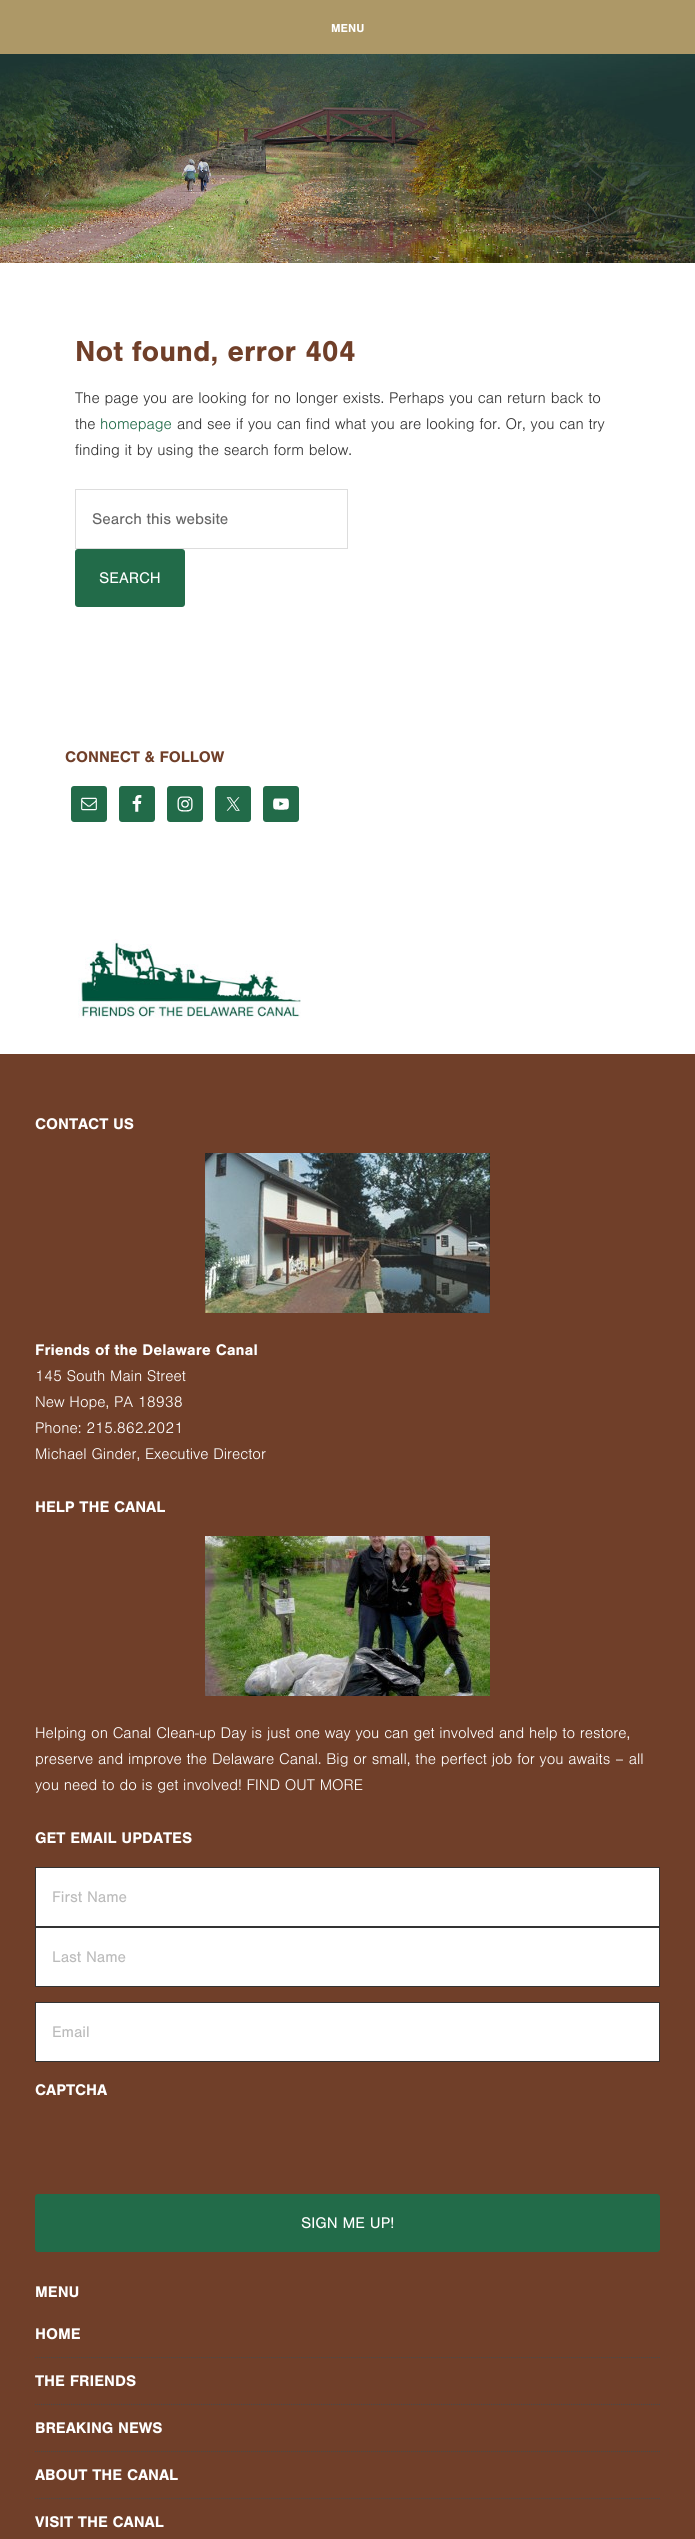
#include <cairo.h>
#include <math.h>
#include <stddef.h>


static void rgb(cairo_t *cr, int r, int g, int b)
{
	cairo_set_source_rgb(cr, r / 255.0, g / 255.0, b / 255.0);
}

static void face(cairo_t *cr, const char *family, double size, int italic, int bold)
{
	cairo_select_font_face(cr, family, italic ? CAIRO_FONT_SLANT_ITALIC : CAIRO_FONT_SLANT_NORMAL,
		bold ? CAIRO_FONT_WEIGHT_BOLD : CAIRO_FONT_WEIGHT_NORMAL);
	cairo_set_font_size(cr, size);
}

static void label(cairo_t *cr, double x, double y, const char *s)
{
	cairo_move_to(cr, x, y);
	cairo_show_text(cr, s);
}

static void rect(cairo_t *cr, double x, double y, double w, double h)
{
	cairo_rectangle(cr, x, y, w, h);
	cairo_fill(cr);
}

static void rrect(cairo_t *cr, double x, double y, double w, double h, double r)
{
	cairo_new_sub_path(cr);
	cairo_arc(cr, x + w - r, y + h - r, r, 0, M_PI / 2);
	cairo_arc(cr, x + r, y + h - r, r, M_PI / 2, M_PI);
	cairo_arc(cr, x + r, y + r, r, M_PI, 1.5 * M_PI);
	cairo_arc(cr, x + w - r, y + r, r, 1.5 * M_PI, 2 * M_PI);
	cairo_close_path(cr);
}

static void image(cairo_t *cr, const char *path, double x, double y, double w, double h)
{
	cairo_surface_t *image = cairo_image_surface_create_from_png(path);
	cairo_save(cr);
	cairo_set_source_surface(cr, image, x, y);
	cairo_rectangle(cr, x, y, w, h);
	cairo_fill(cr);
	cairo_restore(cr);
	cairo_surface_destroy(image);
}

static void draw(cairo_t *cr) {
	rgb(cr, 255, 255, 255);
	cairo_paint(cr);
	rgb(cr, 173, 152, 103);
	rect(cr, 0, 0, 695, 54);
	face(cr, "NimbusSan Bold", 12, 0, 1);
	rgb(cr, 255, 255, 255);
	label(cr, 331, 32, "MENU");
	image(cr, "image0.png", 0, 54, 695, 209);
	face(cr, "NimbusSan Bold", 30, 0, 1);
	rgb(cr, 112, 63, 41);
	label(cr, 75, 361, "Not found, error 404");
	face(cr, "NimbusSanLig", 16, 0, 0);
	rgb(cr, 51, 51, 51);
	label(cr, 75, 403, "The page you are looking for no longer exists. Perhaps you can return back to");
	label(cr, 75, 429, "the");
	rgb(cr, 34, 107, 73);
	label(cr, 100, 429, "homepage");
	rgb(cr, 51, 51, 51);
	label(cr, 177, 429, "and see if you can find what you are looking for. Or, you can try");
	label(cr, 75, 455, "finding it by using the search form below.");
	cairo_rectangle(cr, 75.5, 489.5, 272, 59);
	rgb(cr, 221, 221, 221);
	cairo_set_line_width(cr, 1);
	cairo_stroke(cr);
	face(cr, "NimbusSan", 16, 0, 0);
	rgb(cr, 102, 102, 102);
	label(cr, 92, 524, "Search this website");
	rgb(cr, 34, 107, 73);
	rrect(cr, 75, 549, 110, 58, 3);
	cairo_fill(cr);
	rgb(cr, 255, 255, 255);
	label(cr, 99, 583, "SEARCH");
	face(cr, "NimbusSan Bold", 16, 0, 1);
	rgb(cr, 112, 63, 41);
	label(cr, 65, 762, "CONNECT & FOLLOW");
	rgb(cr, 34, 107, 73);
	rrect(cr, 71, 786, 36, 36, 3);
	cairo_fill(cr);
	image(cr, "image1.png", 81, 797, 16, 14);
	rrect(cr, 119, 786, 36, 36, 3);
	cairo_fill(cr);
	image(cr, "image2.png", 132, 795, 10, 17);
	rrect(cr, 167, 786, 36, 36, 3);
	cairo_fill(cr);
	image(cr, "image3.png", 177, 796, 16, 16);
	rrect(cr, 215, 786, 36, 36, 3);
	cairo_fill(cr);
	image(cr, "image4.png", 226, 797, 14, 14);
	rrect(cr, 263, 786, 36, 36, 3);
	cairo_fill(cr);
	image(cr, "image5.png", 273, 798, 16, 12);
	image(cr, "image6.png", 78, 939, 223, 79);
	rgb(cr, 112, 63, 41);
	rect(cr, 0, 1054, 695, 1485);
	rgb(cr, 255, 255, 255);
	label(cr, 35, 1129, "CONTACT US");
	image(cr, "image7.png", 205, 1153, 285, 160);
	label(cr, 35, 1355, "Friends of the Delaware Canal");
	face(cr, "NimbusSanLig", 16, 0, 0);
	label(cr, 35, 1381, "145 South Main Street");
	label(cr, 35, 1407, "New Hope, PA 18938");
	label(cr, 35, 1433, "Phone: 215.862.2021");
	label(cr, 35, 1459, "Michael Ginder, Executive Director");
	face(cr, "NimbusSan Bold", 16, 0, 1);
	label(cr, 35, 1512, "HELP THE CANAL");
	image(cr, "image8.png", 205, 1536, 285, 160);
	face(cr, "NimbusSanLig", 16, 0, 0);
	label(cr, 35, 1738, "Helping on Canal Clean-up Day is just one way you can get involved and help to restore,");
	label(cr, 35, 1764, "preserve and improve the Delaware Canal. Big or small, the perfect job for you awaits – all");
	label(cr, 35, 1790, "you need to do is get involved! FIND OUT MORE");
	face(cr, "NimbusSan Bold", 16, 0, 1);
	label(cr, 35, 1843, "GET EMAIL UPDATES");
	cairo_rectangle(cr, 35.5, 1867.5, 624, 59);
	cairo_fill_preserve(cr);
	rgb(cr, 51, 51, 51);
	cairo_stroke(cr);
	face(cr, "NimbusSan", 16, 0, 0);
	rgb(cr, 187, 187, 187);
	label(cr, 52, 1902, "First Name");
	rgb(cr, 255, 255, 255);
	cairo_rectangle(cr, 35.5, 1927.5, 624, 59);
	cairo_fill_preserve(cr);
	rgb(cr, 51, 51, 51);
	cairo_stroke(cr);
	rgb(cr, 187, 187, 187);
	label(cr, 52, 1962, "Last Name");
	rgb(cr, 255, 255, 255);
	cairo_rectangle(cr, 35.5, 2002.5, 624, 59);
	cairo_fill_preserve(cr);
	rgb(cr, 51, 51, 51);
	cairo_stroke(cr);
	rgb(cr, 187, 187, 187);
	label(cr, 52, 2037, "Email");
	face(cr, "NimbusSan Bold", 16, 0, 1);
	rgb(cr, 255, 255, 255);
	label(cr, 35, 2095, "CAPTCHA");
	rgb(cr, 34, 107, 73);
	rrect(cr, 35, 2194, 625, 58, 3);
	cairo_fill(cr);
	face(cr, "NimbusSan", 16, 0, 0);
	rgb(cr, 255, 255, 255);
	label(cr, 301, 2228, "SIGN ME UP!");
	face(cr, "NimbusSan Bold", 16, 0, 1);
	label(cr, 35, 2297, "MENU");
	cairo_new_path(cr);
	cairo_move_to(cr, 35, 2357.5);
	cairo_line_to(cr, 660, 2357.5);
	rgb(cr, 73, 73, 73);
	cairo_set_dash(cr, (double[]){1, 1}, 2, 0);
	cairo_stroke(cr);
	rgb(cr, 255, 255, 255);
	label(cr, 35, 2339, "HOME");
	cairo_new_path(cr);
	cairo_move_to(cr, 35, 2404.5);
	cairo_line_to(cr, 660, 2404.5);
	rgb(cr, 73, 73, 73);
	cairo_stroke(cr);
	rgb(cr, 255, 255, 255);
	label(cr, 35, 2386, "THE FRIENDS");
	cairo_new_path(cr);
	cairo_move_to(cr, 35, 2451.5);
	cairo_line_to(cr, 660, 2451.5);
	rgb(cr, 73, 73, 73);
	cairo_stroke(cr);
	rgb(cr, 255, 255, 255);
	label(cr, 35, 2433, "BREAKING NEWS");
	cairo_new_path(cr);
	cairo_move_to(cr, 35, 2498.5);
	cairo_line_to(cr, 660, 2498.5);
	rgb(cr, 73, 73, 73);
	cairo_stroke(cr);
	rgb(cr, 255, 255, 255);
	label(cr, 35, 2480, "ABOUT THE CANAL");
	label(cr, 35, 2527, "VISIT THE CANAL");
}

int main(void) {
	cairo_surface_t *surface = cairo_image_surface_create(CAIRO_FORMAT_RGB24, 695, 2539);
	cairo_t *cr = cairo_create(surface);
	cairo_font_options_t *options = cairo_font_options_create();
	cairo_font_options_set_hint_metrics(options, CAIRO_HINT_METRICS_OFF);
	cairo_font_options_set_hint_style(options, CAIRO_HINT_STYLE_NONE);
	cairo_set_font_options(cr, options);
	cairo_set_miter_limit(cr, 4);
	draw(cr);
	cairo_surface_write_to_png(surface, "render.png");
	cairo_font_options_destroy(options);
	cairo_destroy(cr);
	cairo_surface_destroy(surface);
	return 0;
}
